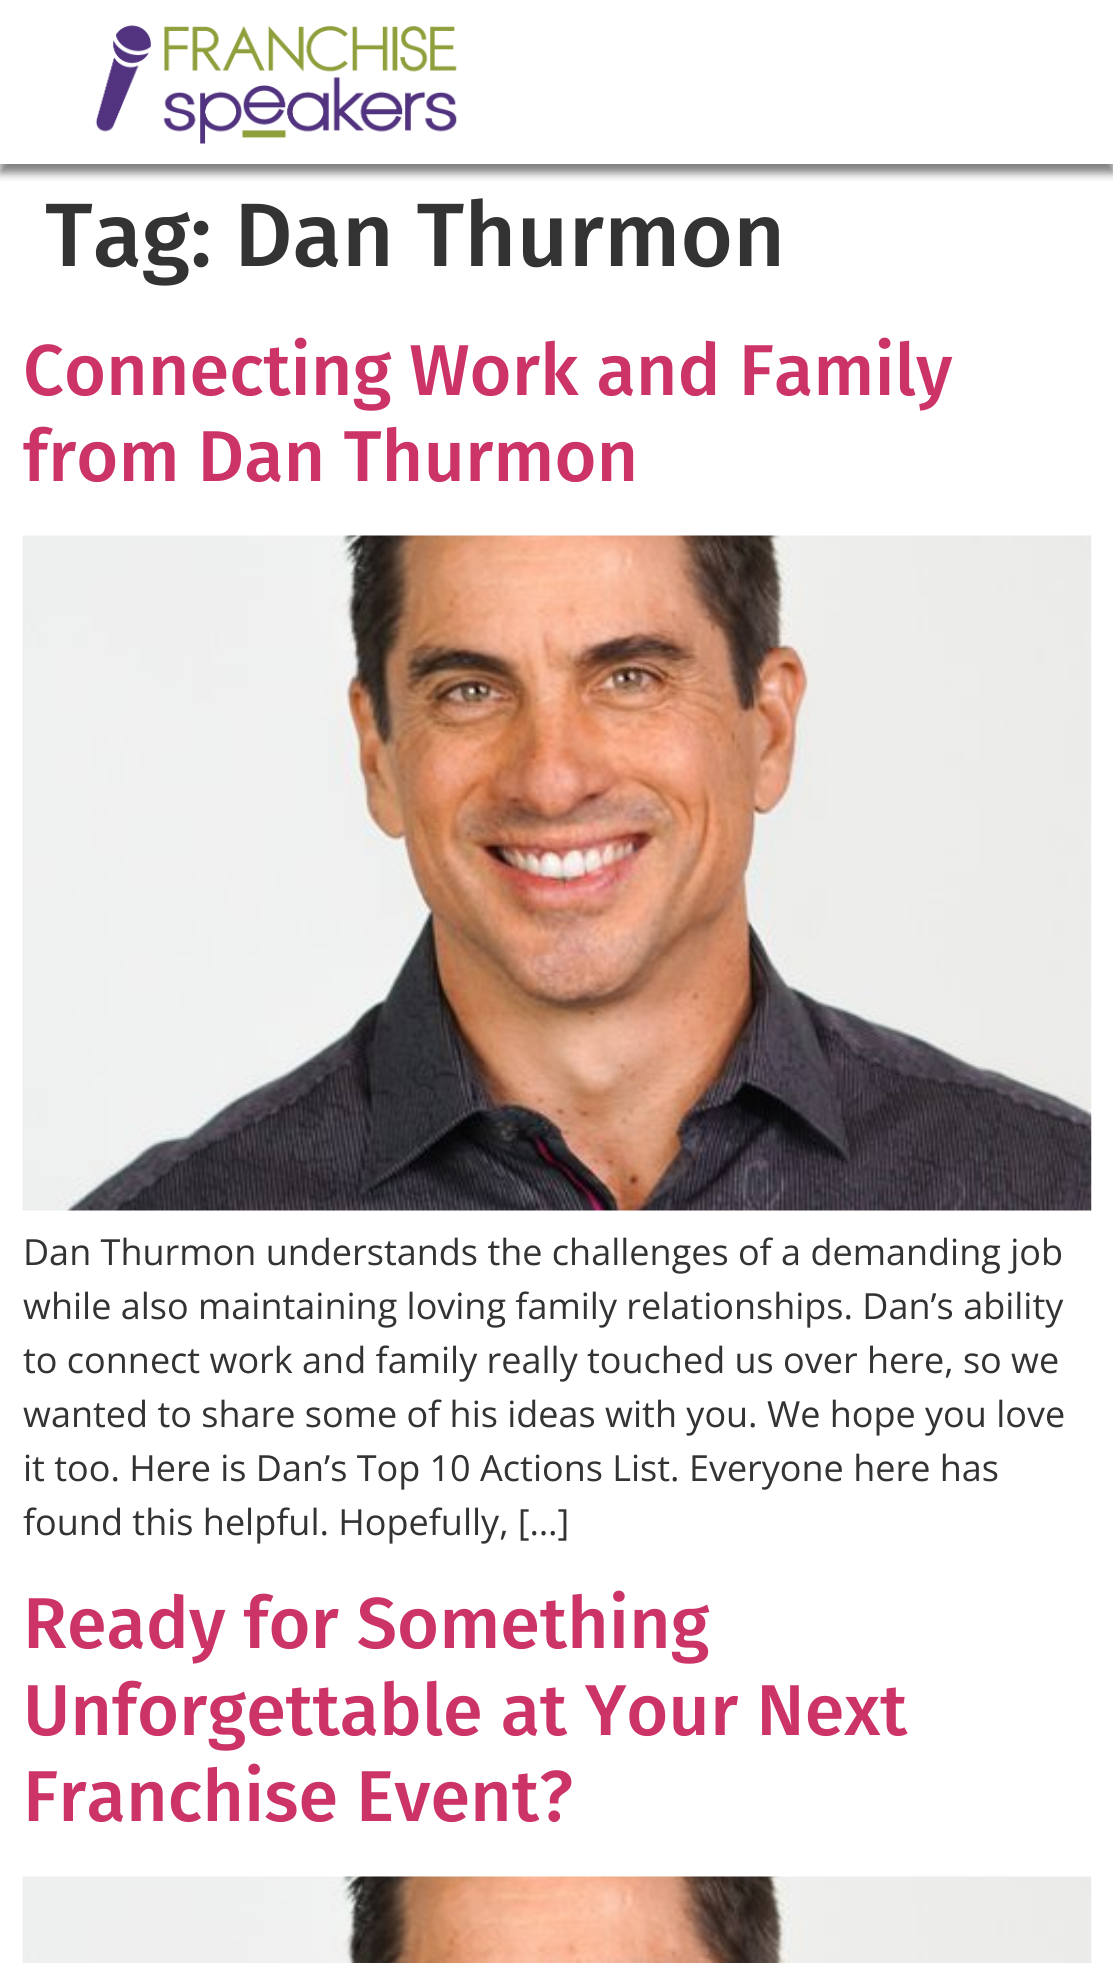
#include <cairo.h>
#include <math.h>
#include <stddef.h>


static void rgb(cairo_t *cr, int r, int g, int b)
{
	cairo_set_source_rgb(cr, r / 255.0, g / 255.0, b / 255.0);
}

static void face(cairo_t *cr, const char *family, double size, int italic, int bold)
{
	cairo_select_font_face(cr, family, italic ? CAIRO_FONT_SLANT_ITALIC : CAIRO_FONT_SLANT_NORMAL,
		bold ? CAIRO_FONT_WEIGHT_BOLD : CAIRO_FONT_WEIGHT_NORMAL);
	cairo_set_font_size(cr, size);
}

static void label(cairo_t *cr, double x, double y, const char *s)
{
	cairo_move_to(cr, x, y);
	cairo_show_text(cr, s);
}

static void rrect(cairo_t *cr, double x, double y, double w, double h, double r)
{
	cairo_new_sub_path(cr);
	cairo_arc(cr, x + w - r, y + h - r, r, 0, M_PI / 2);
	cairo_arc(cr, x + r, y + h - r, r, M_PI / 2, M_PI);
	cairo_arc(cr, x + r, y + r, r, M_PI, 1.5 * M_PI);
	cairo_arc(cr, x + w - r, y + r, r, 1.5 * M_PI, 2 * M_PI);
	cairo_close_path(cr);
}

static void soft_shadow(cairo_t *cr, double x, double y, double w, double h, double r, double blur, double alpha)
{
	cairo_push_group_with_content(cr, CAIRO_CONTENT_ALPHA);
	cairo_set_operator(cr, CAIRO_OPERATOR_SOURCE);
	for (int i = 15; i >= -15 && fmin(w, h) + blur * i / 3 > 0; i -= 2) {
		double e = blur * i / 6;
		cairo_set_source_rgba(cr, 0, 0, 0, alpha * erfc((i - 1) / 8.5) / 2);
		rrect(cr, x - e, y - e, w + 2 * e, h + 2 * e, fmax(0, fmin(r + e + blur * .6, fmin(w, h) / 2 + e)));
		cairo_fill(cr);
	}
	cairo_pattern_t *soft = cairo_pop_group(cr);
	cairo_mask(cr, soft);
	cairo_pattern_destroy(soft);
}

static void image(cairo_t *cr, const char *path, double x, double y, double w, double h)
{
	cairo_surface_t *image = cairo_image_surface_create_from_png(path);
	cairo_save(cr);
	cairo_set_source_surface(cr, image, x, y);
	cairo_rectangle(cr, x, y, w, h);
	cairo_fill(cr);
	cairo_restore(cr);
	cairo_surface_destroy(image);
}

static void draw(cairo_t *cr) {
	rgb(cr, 255, 255, 255);
	cairo_paint(cr);
	cairo_save(cr);
	cairo_rectangle(cr, 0, 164, 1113, 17);
	cairo_clip(cr);
	rgb(cr, 0, 0, 0);
	soft_shadow(cr, 0, 9, 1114, 164, 0, 4.5, 0.5);
	cairo_restore(cr);
	image(cr, "image0.png", 95, 25, 362, 119);
	face(cr, "Fira Sans Medium", 90, 0, 0);
	rgb(cr, 51, 51, 51);
	label(cr, 45, 266, "Tag: Dan Thurmon");
	face(cr, "Fira Sans Medium", 72, 0, 0);
	rgb(cr, 204, 51, 102);
	label(cr, 23, 395, "Connecting Work and Family");
	label(cr, 23, 481, "from Dan Thurmon");
	image(cr, "image1.png", 22, 535, 1070, 676);
	face(cr, "Open Sans", 36, 0, 0);
	rgb(cr, 51, 51, 51);
	label(cr, 23, 1265, "Dan Thurmon understands the challenges of a demanding job");
	label(cr, 23, 1319, "while also maintaining loving family relationships. Dan’s ability");
	label(cr, 23, 1373, "to connect work and family really touched us over here, so we");
	label(cr, 23, 1427, "wanted to share some of his ideas with you. We hope you love");
	label(cr, 23, 1481, "it too. Here is Dan’s Top 10 Actions List. Everyone here has");
	label(cr, 23, 1535, "found this helpful. Hopefully, […]");
	face(cr, "Fira Sans Medium", 72, 0, 0);
	rgb(cr, 204, 51, 102);
	label(cr, 23, 1648, "Ready for Something");
	label(cr, 23, 1735, "Unforgettable at Your Next");
	label(cr, 23, 1821, "Franchise Event?");
	image(cr, "image2.png", 22, 1876, 1070, 87);
}

int main(void) {
	cairo_surface_t *surface = cairo_image_surface_create(CAIRO_FORMAT_RGB24, 1113, 1963);
	cairo_t *cr = cairo_create(surface);
	cairo_font_options_t *options = cairo_font_options_create();
	cairo_font_options_set_hint_metrics(options, CAIRO_HINT_METRICS_OFF);
	cairo_font_options_set_hint_style(options, CAIRO_HINT_STYLE_NONE);
	cairo_set_font_options(cr, options);
	cairo_set_miter_limit(cr, 4);
	draw(cr);
	cairo_surface_write_to_png(surface, "render.png");
	cairo_font_options_destroy(options);
	cairo_destroy(cr);
	cairo_surface_destroy(surface);
	return 0;
}
